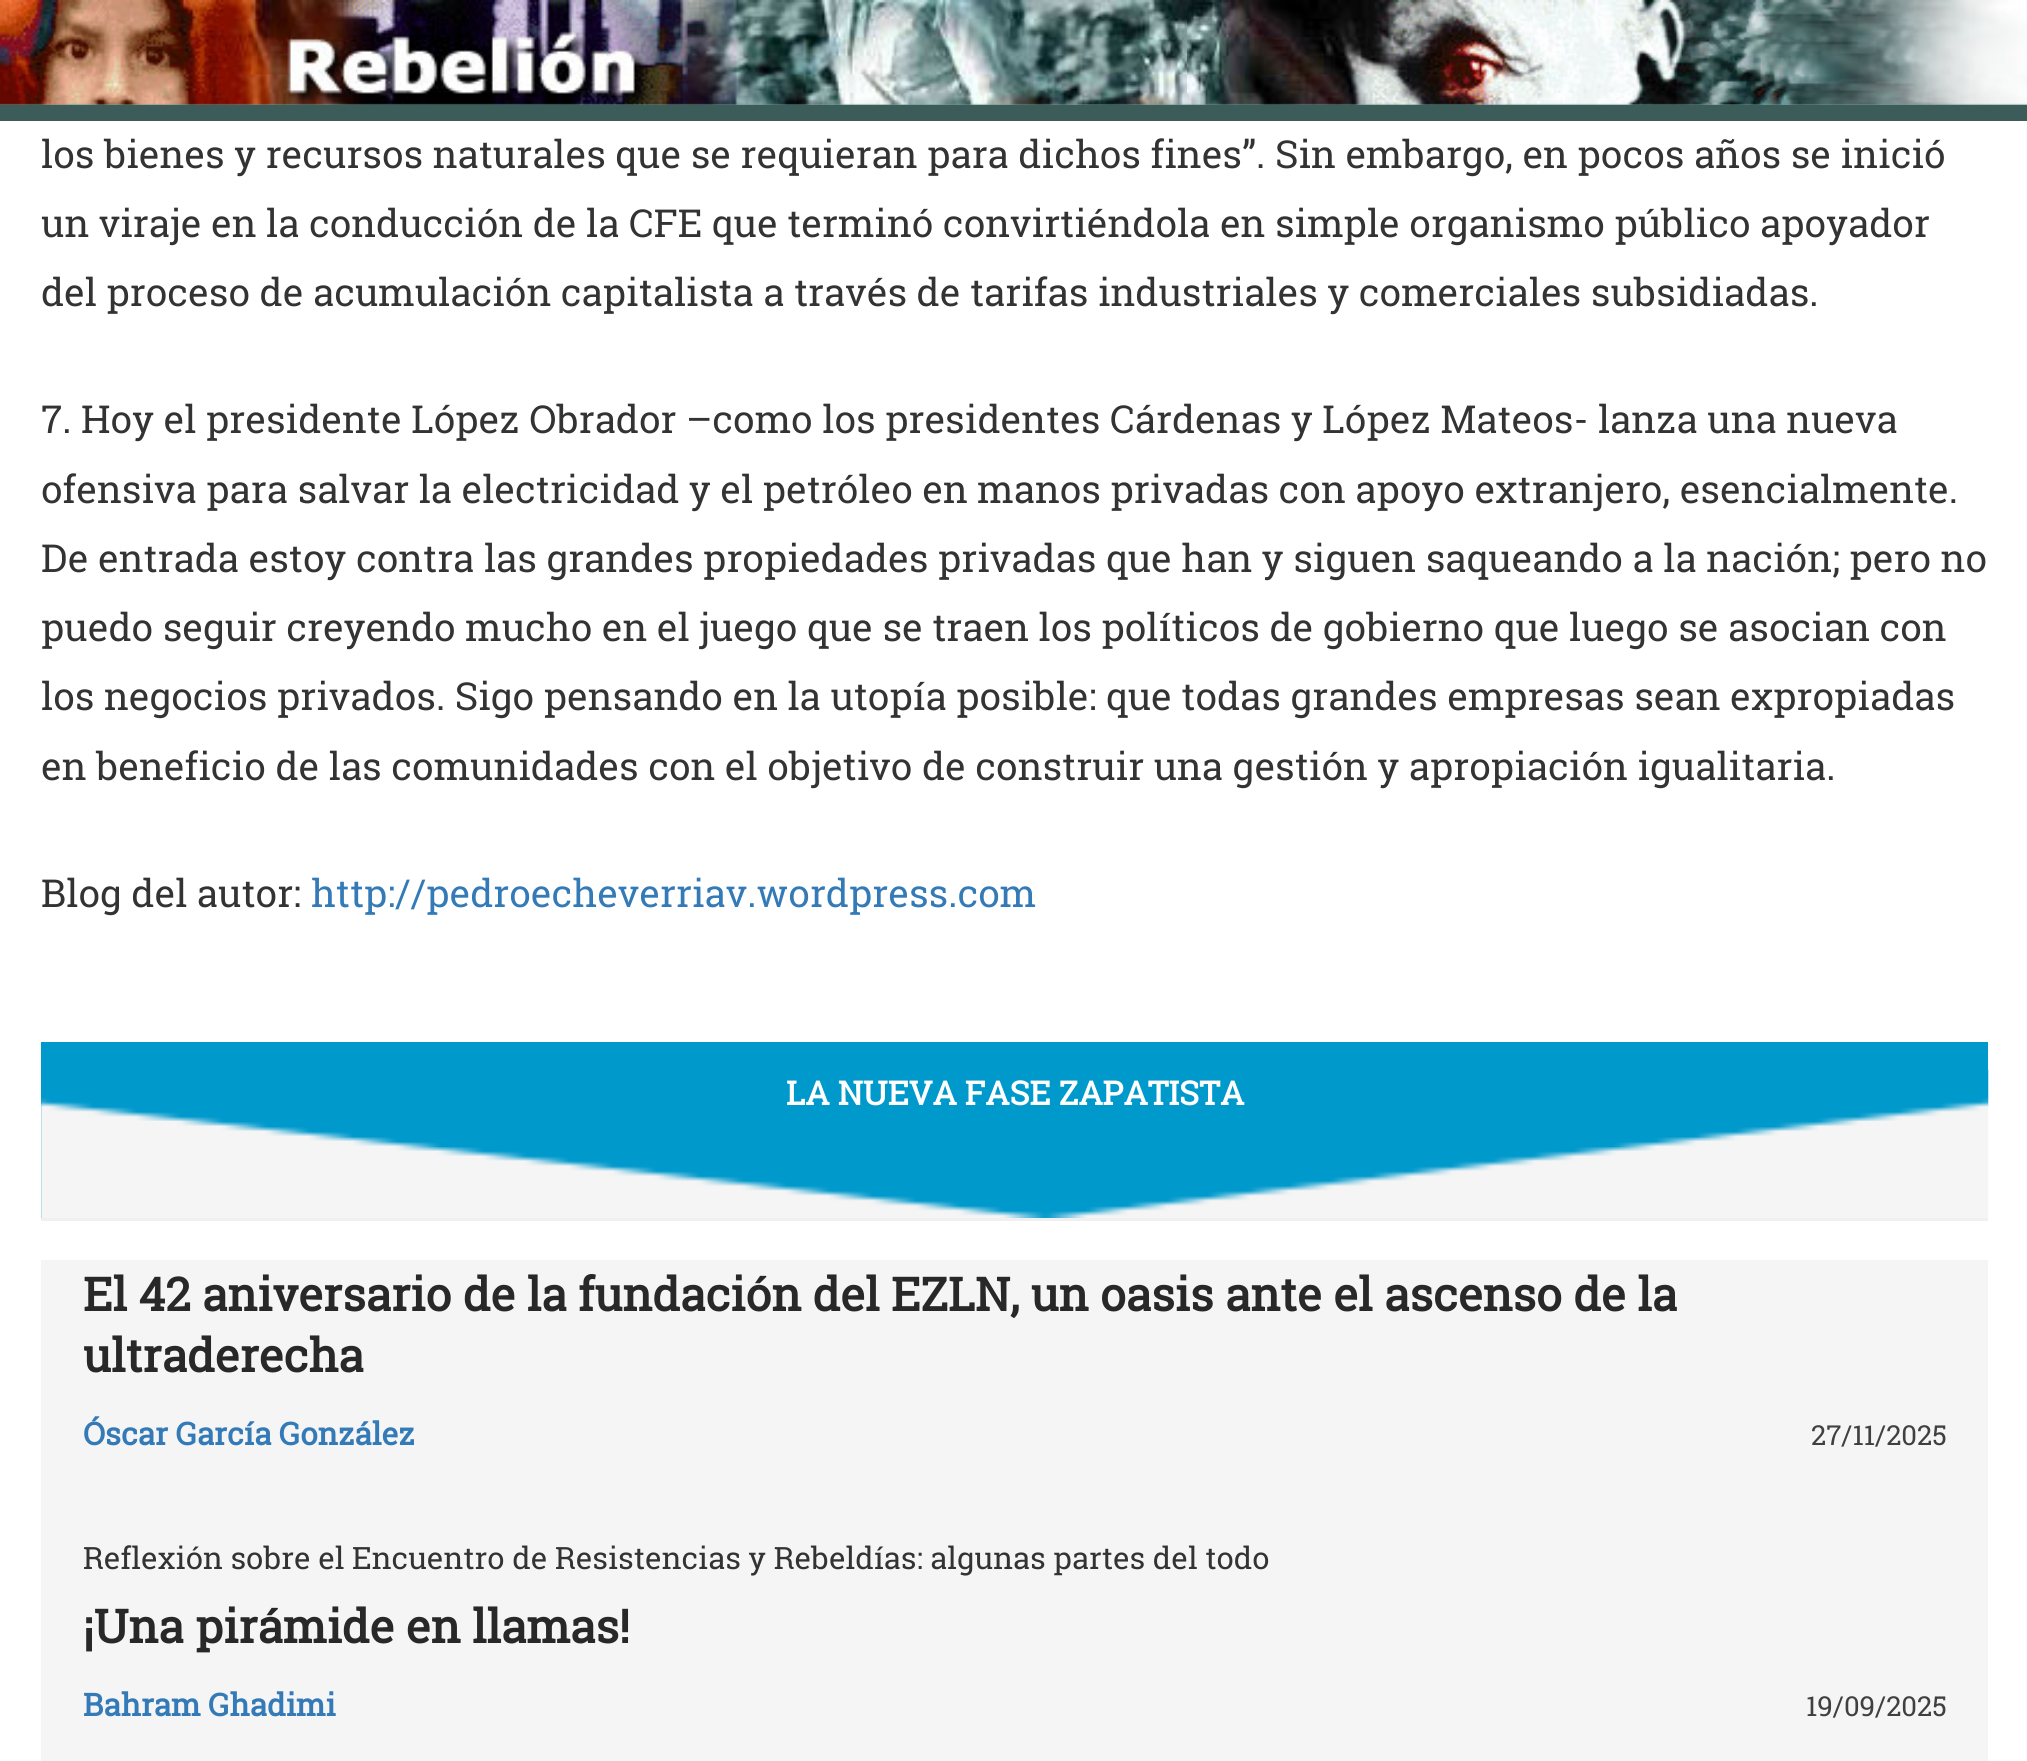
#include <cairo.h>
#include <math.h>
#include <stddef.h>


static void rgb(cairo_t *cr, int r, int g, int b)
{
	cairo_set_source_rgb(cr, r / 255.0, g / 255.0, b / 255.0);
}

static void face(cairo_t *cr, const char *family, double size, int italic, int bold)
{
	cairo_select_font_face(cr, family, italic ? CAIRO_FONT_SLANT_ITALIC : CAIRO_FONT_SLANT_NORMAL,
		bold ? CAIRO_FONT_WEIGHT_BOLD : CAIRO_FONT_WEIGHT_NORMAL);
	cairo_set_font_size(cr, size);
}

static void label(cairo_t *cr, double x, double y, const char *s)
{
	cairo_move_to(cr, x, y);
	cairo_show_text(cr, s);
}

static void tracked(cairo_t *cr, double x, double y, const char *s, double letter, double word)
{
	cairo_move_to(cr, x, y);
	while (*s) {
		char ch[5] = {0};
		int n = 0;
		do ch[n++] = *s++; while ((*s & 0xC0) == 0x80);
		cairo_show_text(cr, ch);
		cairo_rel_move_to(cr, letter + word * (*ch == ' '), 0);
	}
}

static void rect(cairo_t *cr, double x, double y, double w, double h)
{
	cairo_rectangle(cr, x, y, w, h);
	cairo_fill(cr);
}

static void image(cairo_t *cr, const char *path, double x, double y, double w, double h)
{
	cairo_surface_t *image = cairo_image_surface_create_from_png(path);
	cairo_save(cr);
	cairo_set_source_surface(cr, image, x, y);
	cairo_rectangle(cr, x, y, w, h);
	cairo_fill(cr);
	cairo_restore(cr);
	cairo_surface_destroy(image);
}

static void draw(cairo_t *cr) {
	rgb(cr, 255, 255, 255);
	cairo_paint(cr);
	rgb(cr, 108, 149, 144);
	rect(cr, 0, 0, 2027, 105);
	image(cr, "image0.png", 0, 0, 2027, 105);
	rgb(cr, 59, 92, 88);
	rect(cr, 0, 105, 2027, 16);
	face(cr, "Roboto Slab", 38.5, 0, 0);
	rgb(cr, 51, 51, 51);
	label(cr, 41, 168, "los bienes y recursos naturales que se requieran para dichos fines”. Sin embargo, en pocos años se inició");
	label(cr, 41, 237, "un viraje en la conducción de la CFE que terminó convirtiéndola en simple organismo público apoyador");
	label(cr, 41, 306, "del proceso de acumulación capitalista a través de tarifas industriales y comerciales subsidiadas.");
	label(cr, 41, 433, "7. Hoy el presidente López Obrador –como los presidentes Cárdenas y López Mateos- lanza una nueva");
	label(cr, 41, 503, "ofensiva para salvar la electricidad y el petróleo en manos privadas con apoyo extranjero, esencialmente.");
	label(cr, 41, 572, "De entrada estoy contra las grandes propiedades privadas que han y siguen saqueando a la nación; pero no");
	label(cr, 41, 641, "puedo seguir creyendo mucho en el juego que se traen los políticos de gobierno que luego se asocian con");
	label(cr, 41, 710, "los negocios privados. Sigo pensando en la utopía posible: que todas grandes empresas sean expropiadas");
	label(cr, 41, 780, "en beneficio de las comunidades con el objetivo de construir una gestión y apropiación igualitaria.");
	label(cr, 41, 907, "Blog del autor:");
	rgb(cr, 51, 122, 183);
	label(cr, 311, 907, "http://pedroecheverriav.wordpress.com");
	rgb(cr, 0, 153, 204);
	rect(cr, 41, 1042, 1947, 176);
	image(cr, "image1.png", 41, 1069, 1948, 149);
	rgb(cr, 240, 240, 240);
	rect(cr, 41, 1218, 1947, 3);
	face(cr, "Roboto Slab", 33, 0, 1);
	rgb(cr, 255, 255, 255);
	label(cr, 786, 1105, "LA NUEVA FASE ZAPATISTA");
	rgb(cr, 245, 245, 245);
	rect(cr, 41, 1260, 1947, 501);
	face(cr, "Roboto Slab", 46.2, 0, 1);
	rgb(cr, 40, 40, 40);
	tracked(cr, 83, 1311, "El 42 aniversario de la fundación del EZLN, un oasis ante el ascenso de la", 0, -0.1);
	label(cr, 83, 1372, "ultraderecha");
	face(cr, "Roboto Slab", 31.25, 0, 1);
	rgb(cr, 51, 122, 183);
	label(cr, 83, 1445, "Óscar García González");
	face(cr, "Roboto Slab", 27.5, 0, 0);
	rgb(cr, 64, 64, 64);
	label(cr, 1811, 1445, "27/11/2025");
	face(cr, "Roboto Slab", 30.8, 0, 0);
	rgb(cr, 51, 51, 51);
	label(cr, 83, 1569, "Reflexión sobre el Encuentro de Resistencias y Rebeldías: algunas partes del todo");
	face(cr, "Roboto Slab", 46.2, 0, 1);
	rgb(cr, 40, 40, 40);
	label(cr, 83, 1643, "¡Una pirámide en llamas!");
	face(cr, "Roboto Slab", 31.25, 0, 1);
	rgb(cr, 51, 122, 183);
	label(cr, 83, 1716, "Bahram Ghadimi");
	face(cr, "Roboto Slab", 27.5, 0, 0);
	rgb(cr, 64, 64, 64);
	label(cr, 1806, 1716, "19/09/2025");
}

int main(void) {
	cairo_surface_t *surface = cairo_image_surface_create(CAIRO_FORMAT_RGB24, 2027, 1761);
	cairo_t *cr = cairo_create(surface);
	cairo_font_options_t *options = cairo_font_options_create();
	cairo_font_options_set_hint_metrics(options, CAIRO_HINT_METRICS_OFF);
	cairo_font_options_set_hint_style(options, CAIRO_HINT_STYLE_NONE);
	cairo_set_font_options(cr, options);
	cairo_set_miter_limit(cr, 4);
	draw(cr);
	cairo_surface_write_to_png(surface, "render.png");
	cairo_font_options_destroy(options);
	cairo_destroy(cr);
	cairo_surface_destroy(surface);
	return 0;
}
